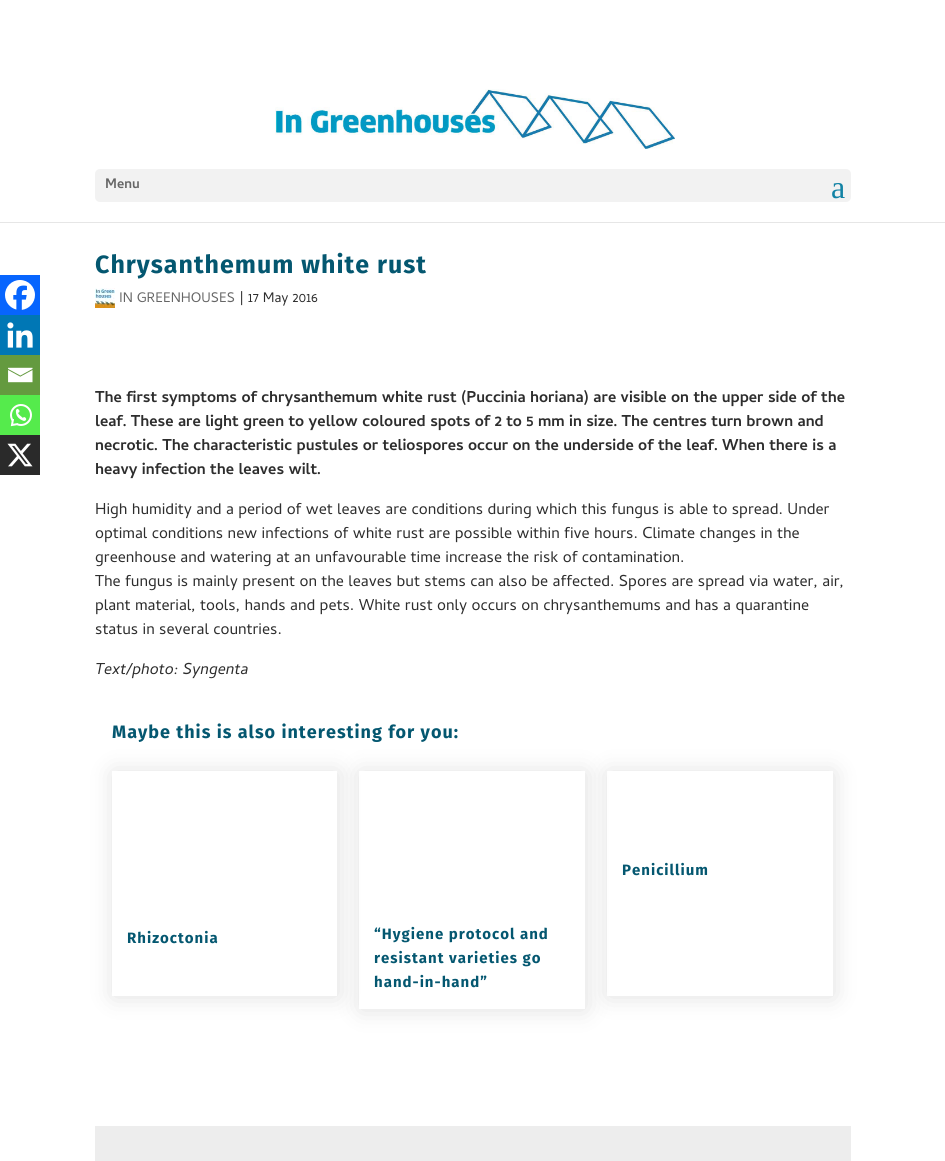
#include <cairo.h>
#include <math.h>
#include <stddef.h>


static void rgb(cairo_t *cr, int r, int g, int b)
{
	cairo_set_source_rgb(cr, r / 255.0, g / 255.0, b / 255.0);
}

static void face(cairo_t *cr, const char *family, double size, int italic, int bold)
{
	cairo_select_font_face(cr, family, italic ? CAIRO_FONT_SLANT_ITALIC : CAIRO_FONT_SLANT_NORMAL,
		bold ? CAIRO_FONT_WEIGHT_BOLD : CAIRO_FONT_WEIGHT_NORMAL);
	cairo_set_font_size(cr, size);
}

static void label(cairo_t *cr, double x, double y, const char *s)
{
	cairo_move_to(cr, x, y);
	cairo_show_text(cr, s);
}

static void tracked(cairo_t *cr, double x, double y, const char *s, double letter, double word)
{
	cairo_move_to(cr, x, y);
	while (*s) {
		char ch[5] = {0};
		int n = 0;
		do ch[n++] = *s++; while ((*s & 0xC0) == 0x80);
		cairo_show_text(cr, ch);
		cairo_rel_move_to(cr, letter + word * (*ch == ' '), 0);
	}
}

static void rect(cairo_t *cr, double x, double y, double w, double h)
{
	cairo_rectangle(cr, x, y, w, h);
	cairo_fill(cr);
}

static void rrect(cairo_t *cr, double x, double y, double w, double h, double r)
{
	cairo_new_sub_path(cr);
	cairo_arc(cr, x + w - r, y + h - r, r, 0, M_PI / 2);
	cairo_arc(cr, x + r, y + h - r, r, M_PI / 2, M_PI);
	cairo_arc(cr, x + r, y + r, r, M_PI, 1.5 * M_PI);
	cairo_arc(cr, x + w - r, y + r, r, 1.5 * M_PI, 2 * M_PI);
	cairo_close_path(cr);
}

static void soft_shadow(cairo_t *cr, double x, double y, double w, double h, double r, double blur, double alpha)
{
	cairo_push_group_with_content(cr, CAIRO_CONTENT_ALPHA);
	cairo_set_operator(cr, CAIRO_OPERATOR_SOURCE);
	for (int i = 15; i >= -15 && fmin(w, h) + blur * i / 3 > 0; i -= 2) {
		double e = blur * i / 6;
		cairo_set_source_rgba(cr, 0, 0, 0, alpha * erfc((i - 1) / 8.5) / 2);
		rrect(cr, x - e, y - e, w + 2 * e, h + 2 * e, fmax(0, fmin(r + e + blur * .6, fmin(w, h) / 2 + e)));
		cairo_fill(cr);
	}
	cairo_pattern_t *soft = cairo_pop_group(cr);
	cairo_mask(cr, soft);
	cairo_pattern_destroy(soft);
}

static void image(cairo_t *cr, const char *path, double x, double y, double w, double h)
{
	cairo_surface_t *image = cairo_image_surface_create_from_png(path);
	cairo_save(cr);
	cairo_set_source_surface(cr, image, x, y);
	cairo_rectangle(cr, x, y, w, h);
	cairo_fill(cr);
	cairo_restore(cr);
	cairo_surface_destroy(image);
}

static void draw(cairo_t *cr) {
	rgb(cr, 255, 255, 255);
	cairo_paint(cr);
	rgb(cr, 230, 230, 230);
	rect(cr, 0, 222, 945, 1);
	image(cr, "image0.png", 275, 89, 400, 60);
	rgb(cr, 242, 242, 242);
	rrect(cr, 95, 169, 756, 33, 5);
	cairo_fill(cr);
	face(cr, "Cambay", 14, 0, 1);
	rgb(cr, 102, 102, 102);
	label(cr, 105, 188, "Menu");
	face(cr, "Liberation Serif", 32, 0, 0);
	rgb(cr, 19, 131, 165);
	label(cr, 831, 198, "a");
	face(cr, "Fira Sans", 25, 0, 1);
	rgb(cr, 4, 87, 112);
	tracked(cr, 95, 273, "Chrysanthemum white rust", 1, 0);
	image(cr, "image1.png", 95, 288, 20, 20);
	face(cr, "Cambay", 14, 0, 0);
	rgb(cr, 102, 102, 102);
	label(cr, 119, 302, "IN GREENHOUSES");
	rgb(cr, 45, 45, 45);
	label(cr, 239, 302, "| 17 May 2016");
	rgb(cr, 7, 101, 254);
	rect(cr, 0, 275, 40, 40);
	image(cr, "image2.png", 5, 280, 30, 30);
	rgb(cr, 0, 119, 181);
	rect(cr, 0, 315, 40, 40);
	image(cr, "image3.png", 7, 322, 26, 26);
	rgb(cr, 100, 154, 63);
	rect(cr, 0, 355, 40, 40);
	image(cr, "image4.png", 8, 367, 25, 16);
	rgb(cr, 85, 235, 76);
	rect(cr, 0, 395, 40, 40);
	image(cr, "image5.png", 10, 404, 22, 23);
	rgb(cr, 42, 42, 42);
	rect(cr, 0, 435, 40, 40);
	image(cr, "image6.png", 7, 443, 26, 24);
	face(cr, "Cambay", 16, 0, 1);
	rgb(cr, 45, 45, 45);
	label(cr, 95, 402, "The first symptoms of chrysanthemum white rust (Puccinia horiana) are visible on the upper side of the");
	label(cr, 95, 426, "leaf. These are light green to yellow coloured spots of 2 to 5 mm in size. The centres turn brown and");
	label(cr, 95, 450, "necrotic. The characteristic pustules or teliospores occur on the underside of the leaf. When there is a");
	label(cr, 95, 474, "heavy infection the leaves wilt.");
	face(cr, "Cambay", 16, 0, 0);
	label(cr, 95, 514, "High humidity and a period of wet leaves are conditions during which this fungus is able to spread. Under");
	label(cr, 95, 538, "optimal conditions new infections of white rust are possible within five hours. Climate changes in the");
	label(cr, 95, 562, "greenhouse and watering at an unfavourable time increase the risk of contamination.");
	label(cr, 95, 586, "The fungus is mainly present on the leaves but stems can also be affected. Spores are spread via water, air,");
	label(cr, 95, 610, "plant material, tools, hands and pets. White rust only occurs on chrysanthemums and has a quarantine");
	label(cr, 95, 634, "status in several countries.");
	face(cr, "Cambay", 16, 1, 0);
	label(cr, 95, 674, "Text/photo: Syngenta");
	cairo_save(cr);
	cairo_set_fill_rule(cr, CAIRO_FILL_RULE_EVEN_ODD);
	cairo_new_path(cr);
	cairo_move_to(cr, 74, 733);
	cairo_line_to(cr, 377, 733);
	cairo_line_to(cr, 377, 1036);
	cairo_line_to(cr, 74, 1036);
	cairo_close_path(cr);
	cairo_move_to(cr, 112, 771);
	cairo_line_to(cr, 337, 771);
	cairo_line_to(cr, 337, 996);
	cairo_line_to(cr, 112, 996);
	cairo_close_path(cr);
	cairo_clip(cr);
	rgb(cr, 0, 0, 0);
	soft_shadow(cr, 113, 772, 225, 225, 0, 12.5, 0.12);
	cairo_restore(cr);
	cairo_save(cr);
	cairo_set_fill_rule(cr, CAIRO_FILL_RULE_EVEN_ODD);
	cairo_new_path(cr);
	cairo_move_to(cr, 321, 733);
	cairo_line_to(cr, 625, 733);
	cairo_line_to(cr, 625, 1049);
	cairo_line_to(cr, 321, 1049);
	cairo_close_path(cr);
	cairo_move_to(cr, 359, 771);
	cairo_line_to(cr, 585, 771);
	cairo_line_to(cr, 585, 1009);
	cairo_line_to(cr, 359, 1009);
	cairo_close_path(cr);
	cairo_clip(cr);
	rgb(cr, 0, 0, 0);
	soft_shadow(cr, 360, 772, 226, 238, 0, 12.5, 0.12);
	cairo_restore(cr);
	face(cr, "Fira Sans", 18, 0, 1);
	rgb(cr, 4, 87, 112);
	tracked(cr, 112, 738, "Maybe this is also interesting for you:", 1, 0);
	cairo_save(cr);
	cairo_set_fill_rule(cr, CAIRO_FILL_RULE_EVEN_ODD);
	cairo_new_path(cr);
	cairo_move_to(cr, 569, 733);
	cairo_line_to(cr, 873, 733);
	cairo_line_to(cr, 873, 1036);
	cairo_line_to(cr, 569, 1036);
	cairo_close_path(cr);
	cairo_move_to(cr, 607, 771);
	cairo_line_to(cr, 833, 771);
	cairo_line_to(cr, 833, 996);
	cairo_line_to(cr, 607, 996);
	cairo_close_path(cr);
	cairo_clip(cr);
	rgb(cr, 0, 0, 0);
	soft_shadow(cr, 608, 772, 226, 225, 0, 12.5, 0.12);
	cairo_restore(cr);
	face(cr, "Fira Sans", 15, 0, 1);
	tracked(cr, 622, 875, "Penicillium", 1, 0);
	tracked(cr, 127, 943, "Rhizoctonia", 1, 0);
	tracked(cr, 374, 939, "“Hygiene protocol and", 1, 0);
	tracked(cr, 374, 963, "resistant varieties go", 1, 0);
	tracked(cr, 374, 987, "hand-in-hand”", 1, 0);
	rgb(cr, 237, 237, 237);
	rect(cr, 95, 1126, 756, 35);
}

int main(void) {
	cairo_surface_t *surface = cairo_image_surface_create(CAIRO_FORMAT_RGB24, 945, 1161);
	cairo_t *cr = cairo_create(surface);
	cairo_font_options_t *options = cairo_font_options_create();
	cairo_font_options_set_hint_metrics(options, CAIRO_HINT_METRICS_OFF);
	cairo_font_options_set_hint_style(options, CAIRO_HINT_STYLE_NONE);
	cairo_set_font_options(cr, options);
	cairo_set_miter_limit(cr, 4);
	draw(cr);
	cairo_surface_write_to_png(surface, "render.png");
	cairo_font_options_destroy(options);
	cairo_destroy(cr);
	cairo_surface_destroy(surface);
	return 0;
}
